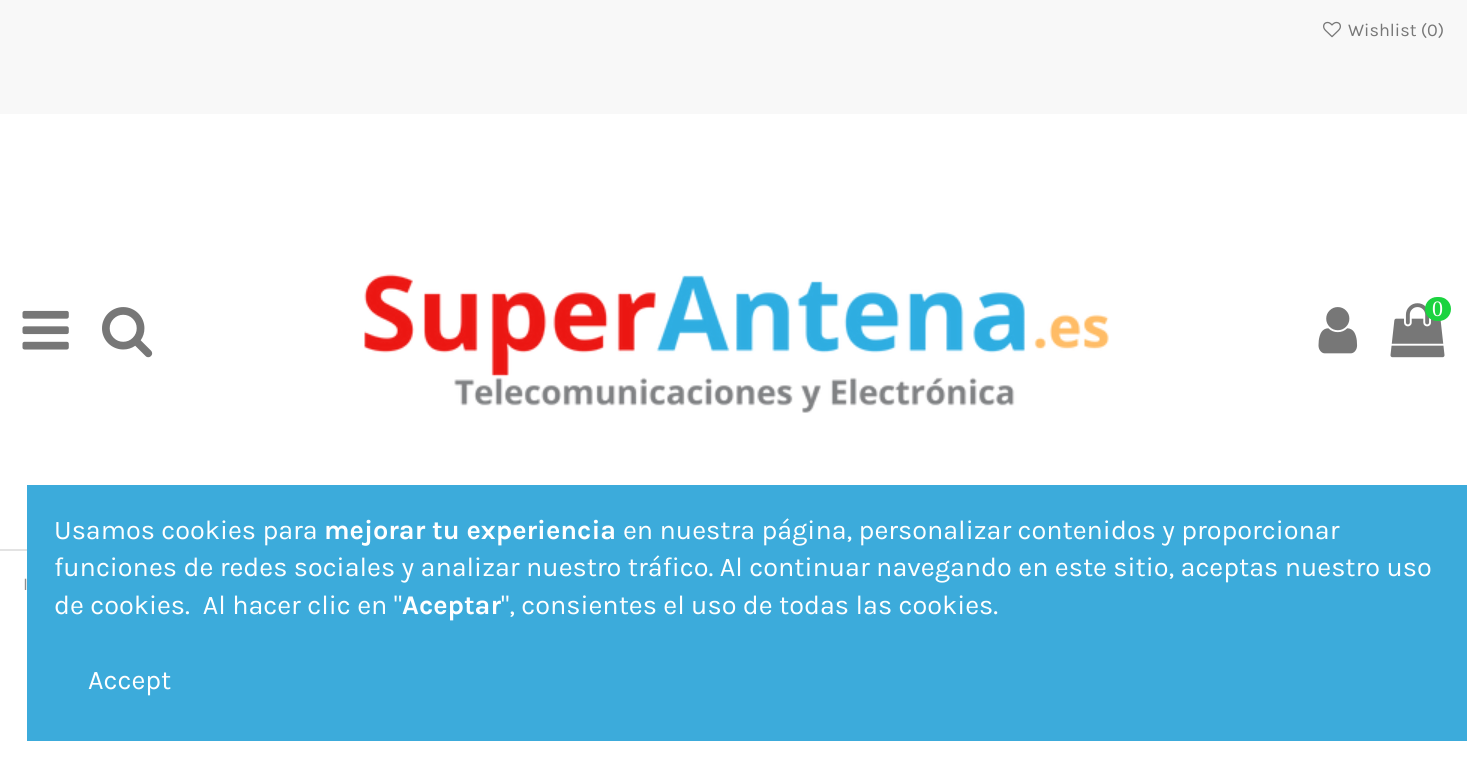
#include <cairo.h>
#include <math.h>
#include <stddef.h>


static void rgb(cairo_t *cr, int r, int g, int b)
{
	cairo_set_source_rgb(cr, r / 255.0, g / 255.0, b / 255.0);
}

static void face(cairo_t *cr, const char *family, double size, int italic, int bold)
{
	cairo_select_font_face(cr, family, italic ? CAIRO_FONT_SLANT_ITALIC : CAIRO_FONT_SLANT_NORMAL,
		bold ? CAIRO_FONT_WEIGHT_BOLD : CAIRO_FONT_WEIGHT_NORMAL);
	cairo_set_font_size(cr, size);
}

static void label(cairo_t *cr, double x, double y, const char *s)
{
	cairo_move_to(cr, x, y);
	cairo_show_text(cr, s);
}

static void rect(cairo_t *cr, double x, double y, double w, double h)
{
	cairo_rectangle(cr, x, y, w, h);
	cairo_fill(cr);
}

static void rrect(cairo_t *cr, double x, double y, double w, double h, double r)
{
	cairo_new_sub_path(cr);
	cairo_arc(cr, x + w - r, y + h - r, r, 0, M_PI / 2);
	cairo_arc(cr, x + r, y + h - r, r, M_PI / 2, M_PI);
	cairo_arc(cr, x + r, y + r, r, M_PI, 1.5 * M_PI);
	cairo_arc(cr, x + w - r, y + r, r, 1.5 * M_PI, 2 * M_PI);
	cairo_close_path(cr);
}

static void image(cairo_t *cr, const char *path, double x, double y, double w, double h)
{
	cairo_surface_t *image = cairo_image_surface_create_from_png(path);
	cairo_save(cr);
	cairo_set_source_surface(cr, image, x, y);
	cairo_rectangle(cr, x, y, w, h);
	cairo_fill(cr);
	cairo_restore(cr);
	cairo_surface_destroy(image);
}

static void draw(cairo_t *cr) {
	rgb(cr, 255, 255, 255);
	cairo_paint(cr);
	rgb(cr, 248, 248, 248);
	rect(cr, 0, 0, 1467, 114);
	image(cr, "image0.png", 1323, 21, 18, 17);
	face(cr, "Karla", 18, 0, 0);
	rgb(cr, 119, 119, 119);
	label(cr, 1348, 36, "Wishlist (0)");
	rgb(cr, 227, 227, 227);
	rect(cr, 0, 549, 27, 2);
	image(cr, "image1.png", 22, 310, 47, 40);
	image(cr, "image2.png", 102, 307, 51, 51);
	image(cr, "image3.png", 364, 274, 745, 139);
	image(cr, "image4.png", 1318, 307, 40, 47);
	image(cr, "image5.png", 1390, 303, 55, 55);
	rgb(cr, 27, 211, 63);
	rrect(cr, 1425, 297, 26, 24, 12);
	cairo_fill(cr);
	face(cr, "Liberation Serif", 22, 0, 0);
	rgb(cr, 255, 255, 255);
	label(cr, 1432, 316, "0");
	face(cr, "Karla", 18, 0, 0);
	rgb(cr, 143, 143, 143);
	label(cr, 23, 590, "I");
	rgb(cr, 60, 171, 219);
	rect(cr, 27, 485, 1440, 256);
	face(cr, "Karla", 27, 0, 0);
	rgb(cr, 255, 255, 255);
	label(cr, 54, 539, "Usamos cookies para");
	face(cr, "Karla", 27, 0, 1);
	label(cr, 324, 539, "mejorar tu experiencia");
	face(cr, "Karla", 27, 0, 0);
	label(cr, 623, 539, "en nuestra página, personalizar contenidos y proporcionar");
	label(cr, 54, 576, "funciones de redes sociales y analizar nuestro tráfico. Al continuar navegando en este sitio, aceptas nuestro uso");
	label(cr, 54, 614, "de cookies.  Al hacer clic en \"");
	face(cr, "Karla", 27, 0, 1);
	label(cr, 402, 614, "Aceptar");
	face(cr, "Karla", 27, 0, 0);
	label(cr, 501, 614, "\", consientes el uso de todas las cookies.");
	label(cr, 88, 689, "Accept");
}

int main(void) {
	cairo_surface_t *surface = cairo_image_surface_create(CAIRO_FORMAT_RGB24, 1467, 768);
	cairo_t *cr = cairo_create(surface);
	cairo_font_options_t *options = cairo_font_options_create();
	cairo_font_options_set_hint_metrics(options, CAIRO_HINT_METRICS_OFF);
	cairo_font_options_set_hint_style(options, CAIRO_HINT_STYLE_NONE);
	cairo_set_font_options(cr, options);
	cairo_set_miter_limit(cr, 4);
	draw(cr);
	cairo_surface_write_to_png(surface, "render.png");
	cairo_font_options_destroy(options);
	cairo_destroy(cr);
	cairo_surface_destroy(surface);
	return 0;
}
